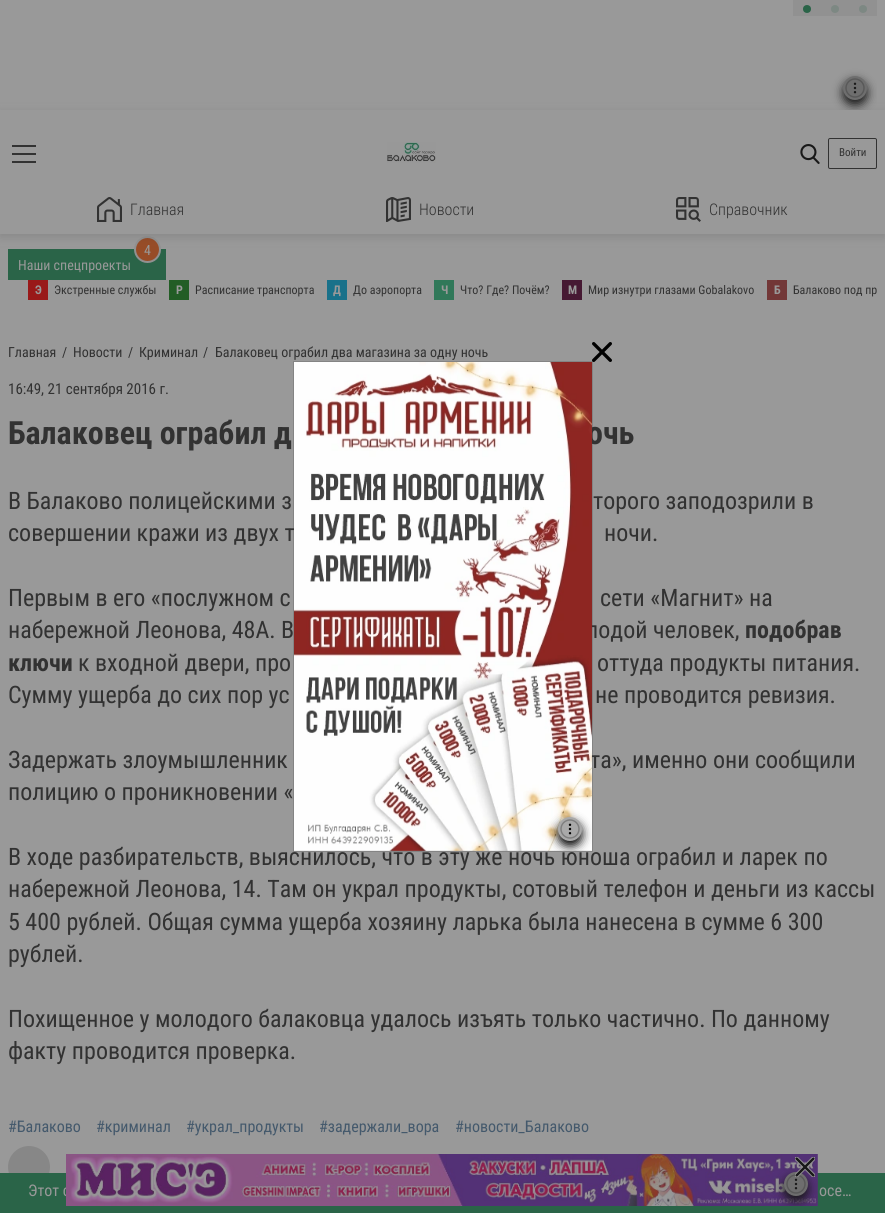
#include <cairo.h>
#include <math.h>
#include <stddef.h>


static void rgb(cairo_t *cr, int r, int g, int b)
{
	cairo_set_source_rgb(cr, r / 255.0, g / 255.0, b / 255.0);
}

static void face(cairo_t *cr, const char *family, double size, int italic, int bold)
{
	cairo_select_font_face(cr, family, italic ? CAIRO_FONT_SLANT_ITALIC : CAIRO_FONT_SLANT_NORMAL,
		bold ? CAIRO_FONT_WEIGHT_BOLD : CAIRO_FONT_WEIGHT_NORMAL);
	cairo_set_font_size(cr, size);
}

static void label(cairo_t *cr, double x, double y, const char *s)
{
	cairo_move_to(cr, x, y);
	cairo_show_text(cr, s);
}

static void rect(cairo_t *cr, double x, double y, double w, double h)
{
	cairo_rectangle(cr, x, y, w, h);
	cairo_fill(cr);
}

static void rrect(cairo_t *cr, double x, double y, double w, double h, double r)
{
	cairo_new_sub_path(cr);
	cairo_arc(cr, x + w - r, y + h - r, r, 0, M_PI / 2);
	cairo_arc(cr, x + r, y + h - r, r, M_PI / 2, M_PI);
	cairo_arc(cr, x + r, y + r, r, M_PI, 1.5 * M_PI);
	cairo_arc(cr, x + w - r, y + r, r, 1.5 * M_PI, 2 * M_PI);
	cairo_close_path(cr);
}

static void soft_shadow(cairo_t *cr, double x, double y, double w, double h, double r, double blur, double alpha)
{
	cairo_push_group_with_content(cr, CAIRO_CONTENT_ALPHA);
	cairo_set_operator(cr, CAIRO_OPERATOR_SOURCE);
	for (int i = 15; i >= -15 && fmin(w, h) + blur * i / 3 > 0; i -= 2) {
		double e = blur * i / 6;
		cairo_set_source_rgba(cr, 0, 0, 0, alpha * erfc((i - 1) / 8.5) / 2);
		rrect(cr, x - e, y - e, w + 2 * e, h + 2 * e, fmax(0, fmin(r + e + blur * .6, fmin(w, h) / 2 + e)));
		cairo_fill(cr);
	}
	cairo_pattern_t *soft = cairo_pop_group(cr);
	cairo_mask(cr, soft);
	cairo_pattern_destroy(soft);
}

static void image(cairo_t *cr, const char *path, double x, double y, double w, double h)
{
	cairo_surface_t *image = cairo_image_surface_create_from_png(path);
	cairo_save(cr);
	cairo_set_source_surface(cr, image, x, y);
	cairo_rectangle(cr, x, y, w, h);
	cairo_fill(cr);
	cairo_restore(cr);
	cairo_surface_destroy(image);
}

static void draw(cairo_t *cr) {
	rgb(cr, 153, 153, 153);
	cairo_paint(cr);
	rgb(cr, 145, 145, 145);
	rect(cr, 793, 0, 84, 16);
	rgb(cr, 42, 100, 72);
	cairo_arc(cr, 807, 9, 4, 0, 2 * M_PI);
	cairo_fill(cr);
	rgb(cr, 125, 136, 131);
	cairo_arc(cr, 835, 9, 4, 0, 2 * M_PI);
	cairo_fill(cr);
	cairo_arc(cr, 863, 9, 4, 0, 2 * M_PI);
	cairo_fill(cr);
	cairo_save(cr);
	cairo_rectangle(cr, 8, 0, 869, 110);
	cairo_clip(cr);
	rgb(cr, 25, 25, 25);
	soft_shadow(cr, 843, 81, 24, 24, 12, 5, 1);
	cairo_restore(cr);
	rgb(cr, 110, 110, 110);
	cairo_arc(cr, 855, 88, 12, 0, 2 * M_PI);
	cairo_fill(cr);
	image(cr, "image0.png", 845, 78, 20, 20);
	rgb(cr, 42, 100, 72);
	rect(cr, 8, 249, 158, 31);
	rgb(cr, 151, 76, 39);
	cairo_arc(cr, 147.5, 249.5, 12.5, 0, 2 * M_PI);
	cairo_fill_preserve(cr);
	rgb(cr, 145, 145, 145);
	cairo_stroke(cr);
	cairo_save(cr);
	cairo_set_fill_rule(cr, CAIRO_FILL_RULE_EVEN_ODD);
	cairo_new_path(cr);
	cairo_move_to(cr, 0, 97);
	cairo_line_to(cr, 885, 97);
	cairo_line_to(cr, 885, 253);
	cairo_line_to(cr, 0, 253);
	cairo_close_path(cr);
	cairo_move_to(cr, 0, 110);
	cairo_line_to(cr, 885, 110);
	cairo_line_to(cr, 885, 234);
	cairo_line_to(cr, 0, 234);
	cairo_close_path(cr);
	cairo_clip(cr);
	rgb(cr, 64, 64, 64);
	soft_shadow(cr, 0, 113, 885, 124, 0, 5, 0.2);
	cairo_restore(cr);
	rgb(cr, 50, 50, 50);
	rect(cr, 12, 153, 24, 2);
	rect(cr, 12, 145, 24, 2);
	rect(cr, 12, 161, 24, 2);
	image(cr, "image1.png", 387, 142, 49, 21);
	image(cr, "image2.png", 800, 144, 20, 20);
	rrect(cr, 828.5, 138.5, 48, 30, 1.5);
	cairo_set_line_width(cr, 1);
	cairo_stroke(cr);
	face(cr, "Roboto Condensed", 11, 0, 0);
	label(cr, 839, 156, "Войти");
	image(cr, "image3.png", 97, 197, 25, 25);
	face(cr, "Roboto Condensed Light", 16, 0, 0);
	label(cr, 130, 215, "Главная");
	image(cr, "image4.png", 386, 197, 25, 25);
	label(cr, 419, 215, "Новости");
	image(cr, "image5.png", 676, 197, 25, 25);
	label(cr, 709, 215, "Справочник");
	face(cr, "Roboto Condensed", 14, 0, 0);
	rgb(cr, 153, 153, 153);
	label(cr, 144, 255, "4");
	label(cr, 18, 270, "Наши спецпроекты");
	rgb(cr, 153, 25, 25);
	rect(cr, 28, 280, 20, 20);
	face(cr, "Roboto Condensed", 12, 0, 1);
	rgb(cr, 153, 153, 153);
	label(cr, 35, 294, "Э");
	face(cr, "Roboto Condensed", 12, 0, 0);
	rgb(cr, 50, 50, 50);
	label(cr, 54, 294, "Экстренные службы");
	rgb(cr, 34, 93, 37);
	rect(cr, 169, 280, 20, 20);
	face(cr, "Roboto Condensed", 12, 0, 1);
	rgb(cr, 153, 153, 153);
	label(cr, 176, 294, "Р");
	face(cr, "Roboto Condensed", 12, 0, 0);
	rgb(cr, 50, 50, 50);
	label(cr, 195, 294, "Расписание транспорта");
	rgb(cr, 25, 113, 138);
	rect(cr, 327, 280, 20, 20);
	face(cr, "Roboto Condensed", 12, 0, 1);
	rgb(cr, 153, 153, 153);
	label(cr, 333, 294, "Д");
	face(cr, "Roboto Condensed", 12, 0, 0);
	rgb(cr, 50, 50, 50);
	label(cr, 353, 294, "До аэропорта");
	rgb(cr, 48, 120, 89);
	rect(cr, 434, 280, 20, 20);
	face(cr, "Roboto Condensed", 12, 0, 1);
	rgb(cr, 153, 153, 153);
	label(cr, 441, 294, "Ч");
	face(cr, "Roboto Condensed", 12, 0, 0);
	rgb(cr, 50, 50, 50);
	label(cr, 460, 294, "Что? Где? Почём?");
	rgb(cr, 70, 25, 51);
	rect(cr, 562, 280, 20, 20);
	face(cr, "Roboto Condensed", 12, 0, 1);
	rgb(cr, 153, 153, 153);
	label(cr, 568, 294, "М");
	face(cr, "Roboto Condensed", 12, 0, 0);
	rgb(cr, 50, 50, 50);
	label(cr, 588, 294, "Мир изнутри глазами Gobalakovo");
	rgb(cr, 114, 55, 55);
	rect(cr, 767, 280, 20, 20);
	face(cr, "Roboto Condensed", 12, 0, 1);
	rgb(cr, 153, 153, 153);
	label(cr, 774, 294, "Б");
	face(cr, "Roboto Condensed", 12, 0, 0);
	rgb(cr, 50, 50, 50);
	label(cr, 793, 294, "Балаково под пр");
	face(cr, "Roboto Condensed", 14, 0, 0);
	label(cr, 8, 357, "Главная");
	label(cr, 62, 357, "/");
	label(cr, 73, 357, "Новости");
	label(cr, 128, 357, "/");
	label(cr, 139, 357, "Криминал");
	label(cr, 203, 357, "/");
	label(cr, 215, 357, "Балаковец ограбил два магазина за одну ночь");
	face(cr, "Roboto Condensed", 15, 0, 0);
	label(cr, 8, 394, "16:49, 21 сентября 2016 г.");
	face(cr, "Roboto Condensed", 32, 0, 1);
	label(cr, 8, 444, "Балаковец ограбил д");
	label(cr, 587, 444, "очь");
	face(cr, "Roboto Condensed", 24, 0, 0);
	label(cr, 8, 509, "В Балаково полицейскими з");
	label(cr, 593, 509, "торого заподозрили в");
	label(cr, 8, 541, "совершении кражи из двух т");
	label(cr, 604, 541, "ночи.");
	label(cr, 8, 606, "Первым в его «послужном с");
	label(cr, 600, 606, "сети «Магнит» на");
	label(cr, 8, 638, "набережной Леонова, 48А. В");
	label(cr, 586, 638, "лодой человек,");
	face(cr, "Roboto Condensed", 24, 0, 1);
	label(cr, 745, 638, "подобрав");
	label(cr, 8, 671, "ключи");
	face(cr, "Roboto Condensed", 24, 0, 0);
	label(cr, 78, 671, "к входной двери, про");
	label(cr, 597, 671, "оттуда продукты питания.");
	label(cr, 8, 703, "Сумму ущерба до сих пор ус");
	label(cr, 595, 703, "не проводится ревизия.");
	label(cr, 8, 768, "Задержать злоумышленник");
	label(cr, 590, 768, "та», именно они сообщили");
	label(cr, 8, 800, "полицию о проникновении «");
	label(cr, 8, 865, "В ходе разбирательств, выяснилось, что в эту же ночь юноша ограбил и ларек по");
	label(cr, 8, 897, "набережной Леонова, 14. Там он украл продукты, сотовый телефон и деньги из кассы");
	label(cr, 8, 930, "5 400 рублей. Общая сумма ущерба хозяину ларька была нанесена в сумме 6 300");
	label(cr, 8, 962, "рублей.");
	label(cr, 8, 1027, "Похищенное у молодого балаковца удалось изъять только частично. По данному");
	label(cr, 8, 1059, "факту проводится проверка.");
	face(cr, "Roboto Condensed", 16, 0, 0);
	rgb(cr, 68, 89, 108);
	label(cr, 8, 1132, "#Балаково");
	label(cr, 96, 1132, "#криминал");
	label(cr, 186, 1132, "#украл_продукты");
	label(cr, 319, 1132, "#задержали_вора");
	label(cr, 455, 1132, "#новости_Балаково");
	rgb(cr, 135, 135, 135);
	cairo_new_path(cr);
	cairo_arc(cr, 29, 1167, 21, 0, 2 * M_PI);
	cairo_fill(cr);
	cairo_rectangle(cr, 293.5, 361.5, 299, 490);
	cairo_set_source_rgba(cr, 0.196, 0.196, 0.196, 0.2);
	cairo_stroke(cr);
	image(cr, "image6.png", 592, 342, 20, 20);
	image(cr, "image7.png", 294, 362, 298, 489);
	cairo_save(cr);
	cairo_rectangle(cr, 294, 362, 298, 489);
	cairo_clip(cr);
	rgb(cr, 0, 0, 0);
	soft_shadow(cr, 558, 822, 24, 24, 12, 5, 1);
	cairo_restore(cr);
	rgb(cr, 169, 169, 169);
	cairo_arc(cr, 570, 829, 12, 0, 2 * M_PI);
	cairo_fill(cr);
	image(cr, "image8.png", 560, 819, 20, 20);
	rgb(cr, 42, 100, 72);
	rect(cr, 0, 1173, 885, 40);
	rgb(cr, 153, 153, 153);
	label(cr, 28, 1196, "Этот с");
	image(cr, "image9.png", 66, 1154, 752, 52);
	cairo_save(cr);
	cairo_rectangle(cr, 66, 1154, 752, 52);
	cairo_clip(cr);
	rgb(cr, 25, 25, 25);
	soft_shadow(cr, 784, 1177, 24, 24, 12, 5, 1);
	cairo_restore(cr);
	rgb(cr, 110, 110, 110);
	cairo_arc(cr, 796, 1184, 12, 0, 2 * M_PI);
	cairo_fill(cr);
	image(cr, "image10.png", 786, 1174, 20, 20);
	image(cr, "image11.png", 795, 1157, 20, 20);
	rgb(cr, 153, 153, 153);
	label(cr, 819, 1196, "осе…");
}

int main(void) {
	cairo_surface_t *surface = cairo_image_surface_create(CAIRO_FORMAT_RGB24, 885, 1213);
	cairo_t *cr = cairo_create(surface);
	cairo_font_options_t *options = cairo_font_options_create();
	cairo_font_options_set_hint_metrics(options, CAIRO_HINT_METRICS_OFF);
	cairo_font_options_set_hint_style(options, CAIRO_HINT_STYLE_NONE);
	cairo_set_font_options(cr, options);
	cairo_set_miter_limit(cr, 4);
	draw(cr);
	cairo_surface_write_to_png(surface, "render.png");
	cairo_font_options_destroy(options);
	cairo_destroy(cr);
	cairo_surface_destroy(surface);
	return 0;
}
